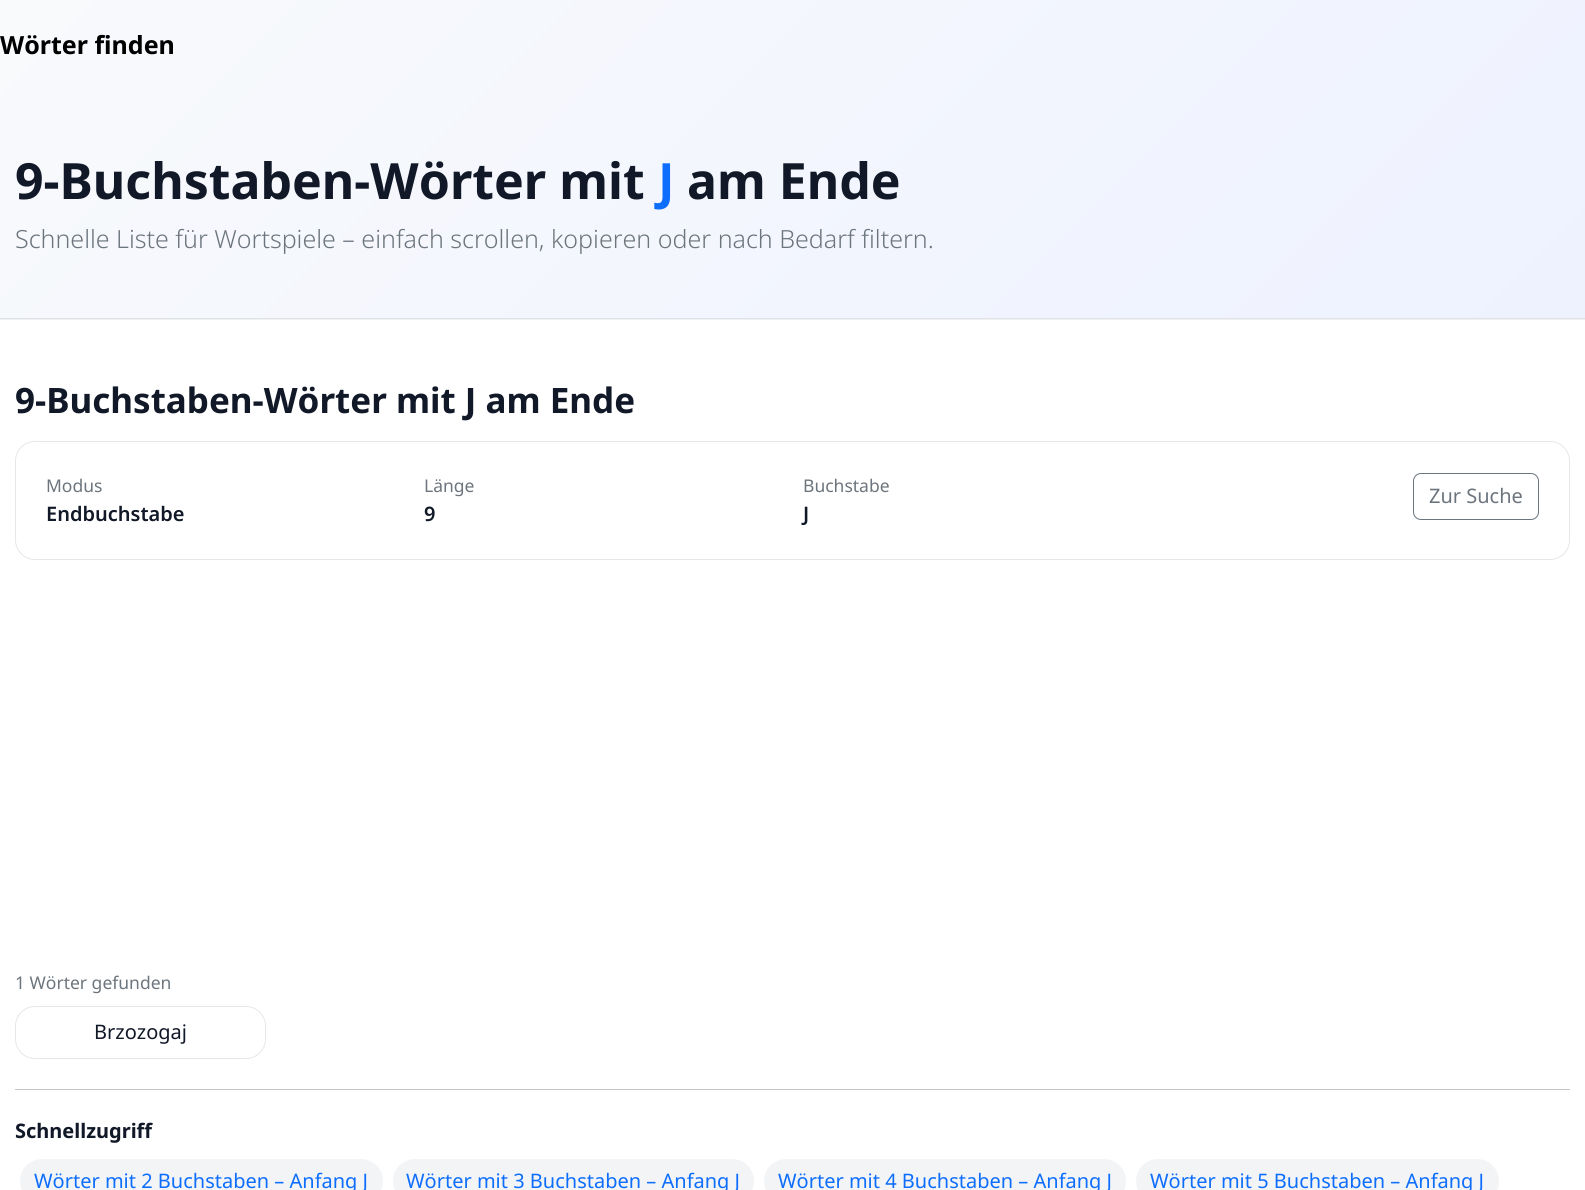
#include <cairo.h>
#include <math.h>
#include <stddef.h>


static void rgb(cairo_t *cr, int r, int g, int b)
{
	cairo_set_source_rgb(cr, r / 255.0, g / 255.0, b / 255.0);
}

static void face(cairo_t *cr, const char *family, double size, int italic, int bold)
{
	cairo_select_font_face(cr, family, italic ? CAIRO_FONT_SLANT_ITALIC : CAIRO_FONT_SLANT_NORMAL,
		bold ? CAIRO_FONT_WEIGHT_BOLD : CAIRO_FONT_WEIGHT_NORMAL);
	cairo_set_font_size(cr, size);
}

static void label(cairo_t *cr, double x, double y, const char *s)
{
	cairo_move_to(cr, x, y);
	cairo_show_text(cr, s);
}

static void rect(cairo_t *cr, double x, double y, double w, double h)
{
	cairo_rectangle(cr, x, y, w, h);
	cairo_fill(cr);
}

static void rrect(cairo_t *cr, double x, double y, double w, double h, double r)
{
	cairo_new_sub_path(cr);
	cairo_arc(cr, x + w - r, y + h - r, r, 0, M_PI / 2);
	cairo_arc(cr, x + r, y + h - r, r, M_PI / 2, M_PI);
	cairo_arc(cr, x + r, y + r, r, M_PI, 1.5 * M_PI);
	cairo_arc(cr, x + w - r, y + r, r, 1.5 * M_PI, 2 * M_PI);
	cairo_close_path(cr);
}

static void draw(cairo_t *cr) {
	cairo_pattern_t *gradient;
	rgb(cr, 255, 255, 255);
	cairo_paint(cr);
	rgb(cr, 241, 241, 242);
	rect(cr, 0, 319, 1585, 1);
	gradient = cairo_pattern_create_linear(317, -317, 1268, 634);
	cairo_pattern_add_color_stop_rgba(gradient, 0, 0.973, 0.98, 0.988, 1);
	cairo_pattern_add_color_stop_rgba(gradient, 1, 0.933, 0.949, 1, 1);
	cairo_set_source(cr, gradient);
	cairo_pattern_destroy(gradient);
	rect(cr, 0, 0, 1585, 318);
	rgb(cr, 222, 226, 230);
	rect(cr, 0, 318, 1585, 1);
	face(cr, "Noto Sans", 25, 0, 1);
	rgb(cr, 0, 0, 0);
	label(cr, 0, 54, "Wörter finden");
	face(cr, "Noto Sans", 50, 0, 1);
	rgb(cr, 17, 24, 39);
	label(cr, 15, 199, "9-Buchstaben-Wörter mit");
	rgb(cr, 13, 110, 253);
	label(cr, 658, 199, "J");
	rgb(cr, 17, 24, 39);
	label(cr, 687, 199, "am Ende");
	face(cr, "Noto Sans Light", 25, 0, 0);
	rgb(cr, 108, 117, 125);
	label(cr, 15, 248, "Schnelle Liste für Wortspiele – einfach scrollen, kopieren oder nach Bedarf filtern.");
	face(cr, "Noto Sans", 35, 0, 1);
	rgb(cr, 17, 24, 39);
	label(cr, 15, 413, "9-Buchstaben-Wörter mit J am Ende");
	rrect(cr, 15.5, 441.5, 1554, 118, 19.5);
	rgb(cr, 229, 231, 235);
	cairo_set_line_width(cr, 1);
	cairo_stroke(cr);
	face(cr, "Noto Sans", 17.5, 0, 0);
	rgb(cr, 108, 117, 125);
	label(cr, 46, 492, "Modus");
	face(cr, "Noto Sans SemiBold", 20, 0, 0);
	rgb(cr, 17, 24, 39);
	label(cr, 46, 521, "Endbuchstabe");
	face(cr, "Noto Sans", 17.5, 0, 0);
	rgb(cr, 108, 117, 125);
	label(cr, 424, 492, "Länge");
	face(cr, "Noto Sans SemiBold", 20, 0, 0);
	rgb(cr, 17, 24, 39);
	label(cr, 424, 521, "9");
	face(cr, "Noto Sans", 17.5, 0, 0);
	rgb(cr, 108, 117, 125);
	label(cr, 803, 492, "Buchstabe");
	face(cr, "Noto Sans SemiBold", 20, 0, 0);
	rgb(cr, 17, 24, 39);
	label(cr, 803, 521, "J");
	rrect(cr, 1413.5, 473.5, 125, 46, 7.5);
	rgb(cr, 108, 117, 125);
	cairo_stroke(cr);
	face(cr, "Noto Sans", 20, 0, 0);
	label(cr, 1429, 503, "Zur Suche");
	face(cr, "Noto Sans", 17.5, 0, 0);
	label(cr, 15, 989, "1 Wörter gefunden");
	rrect(cr, 15.5, 1006.5, 250, 52, 19.5);
	rgb(cr, 229, 231, 235);
	cairo_stroke(cr);
	face(cr, "Noto Sans", 20, 0, 0);
	rgb(cr, 17, 24, 39);
	label(cr, 94, 1039, "Brzozogaj");
	rgb(cr, 196, 197, 201);
	rect(cr, 15, 1089, 1555, 1);
	face(cr, "Noto Sans", 20, 0, 1);
	rgb(cr, 17, 24, 39);
	label(cr, 15, 1138, "Schnellzugriff");
	rgb(cr, 243, 244, 246);
	rrect(cr, 20, 1159, 363, 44, 22);
	cairo_fill(cr);
	face(cr, "Noto Sans", 20, 0, 0);
	rgb(cr, 13, 110, 253);
	label(cr, 34, 1188, "Wörter mit 2 Buchstaben – Anfang J");
	rgb(cr, 243, 244, 246);
	rrect(cr, 393, 1159, 361, 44, 22);
	cairo_fill(cr);
	rgb(cr, 13, 110, 253);
	label(cr, 406, 1188, "Wörter mit 3 Buchstaben – Anfang J");
	rgb(cr, 243, 244, 246);
	rrect(cr, 764, 1159, 362, 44, 22);
	cairo_fill(cr);
	rgb(cr, 13, 110, 253);
	label(cr, 778, 1188, "Wörter mit 4 Buchstaben – Anfang J");
	rgb(cr, 243, 244, 246);
	rrect(cr, 1136, 1159, 363, 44, 22);
	cairo_fill(cr);
	rgb(cr, 13, 110, 253);
	label(cr, 1150, 1188, "Wörter mit 5 Buchstaben – Anfang J");
}

int main(void) {
	cairo_surface_t *surface = cairo_image_surface_create(CAIRO_FORMAT_RGB24, 1585, 1190);
	cairo_t *cr = cairo_create(surface);
	cairo_font_options_t *options = cairo_font_options_create();
	cairo_font_options_set_hint_metrics(options, CAIRO_HINT_METRICS_OFF);
	cairo_font_options_set_hint_style(options, CAIRO_HINT_STYLE_NONE);
	cairo_set_font_options(cr, options);
	cairo_set_miter_limit(cr, 4);
	draw(cr);
	cairo_surface_write_to_png(surface, "render.png");
	cairo_font_options_destroy(options);
	cairo_destroy(cr);
	cairo_surface_destroy(surface);
	return 0;
}
